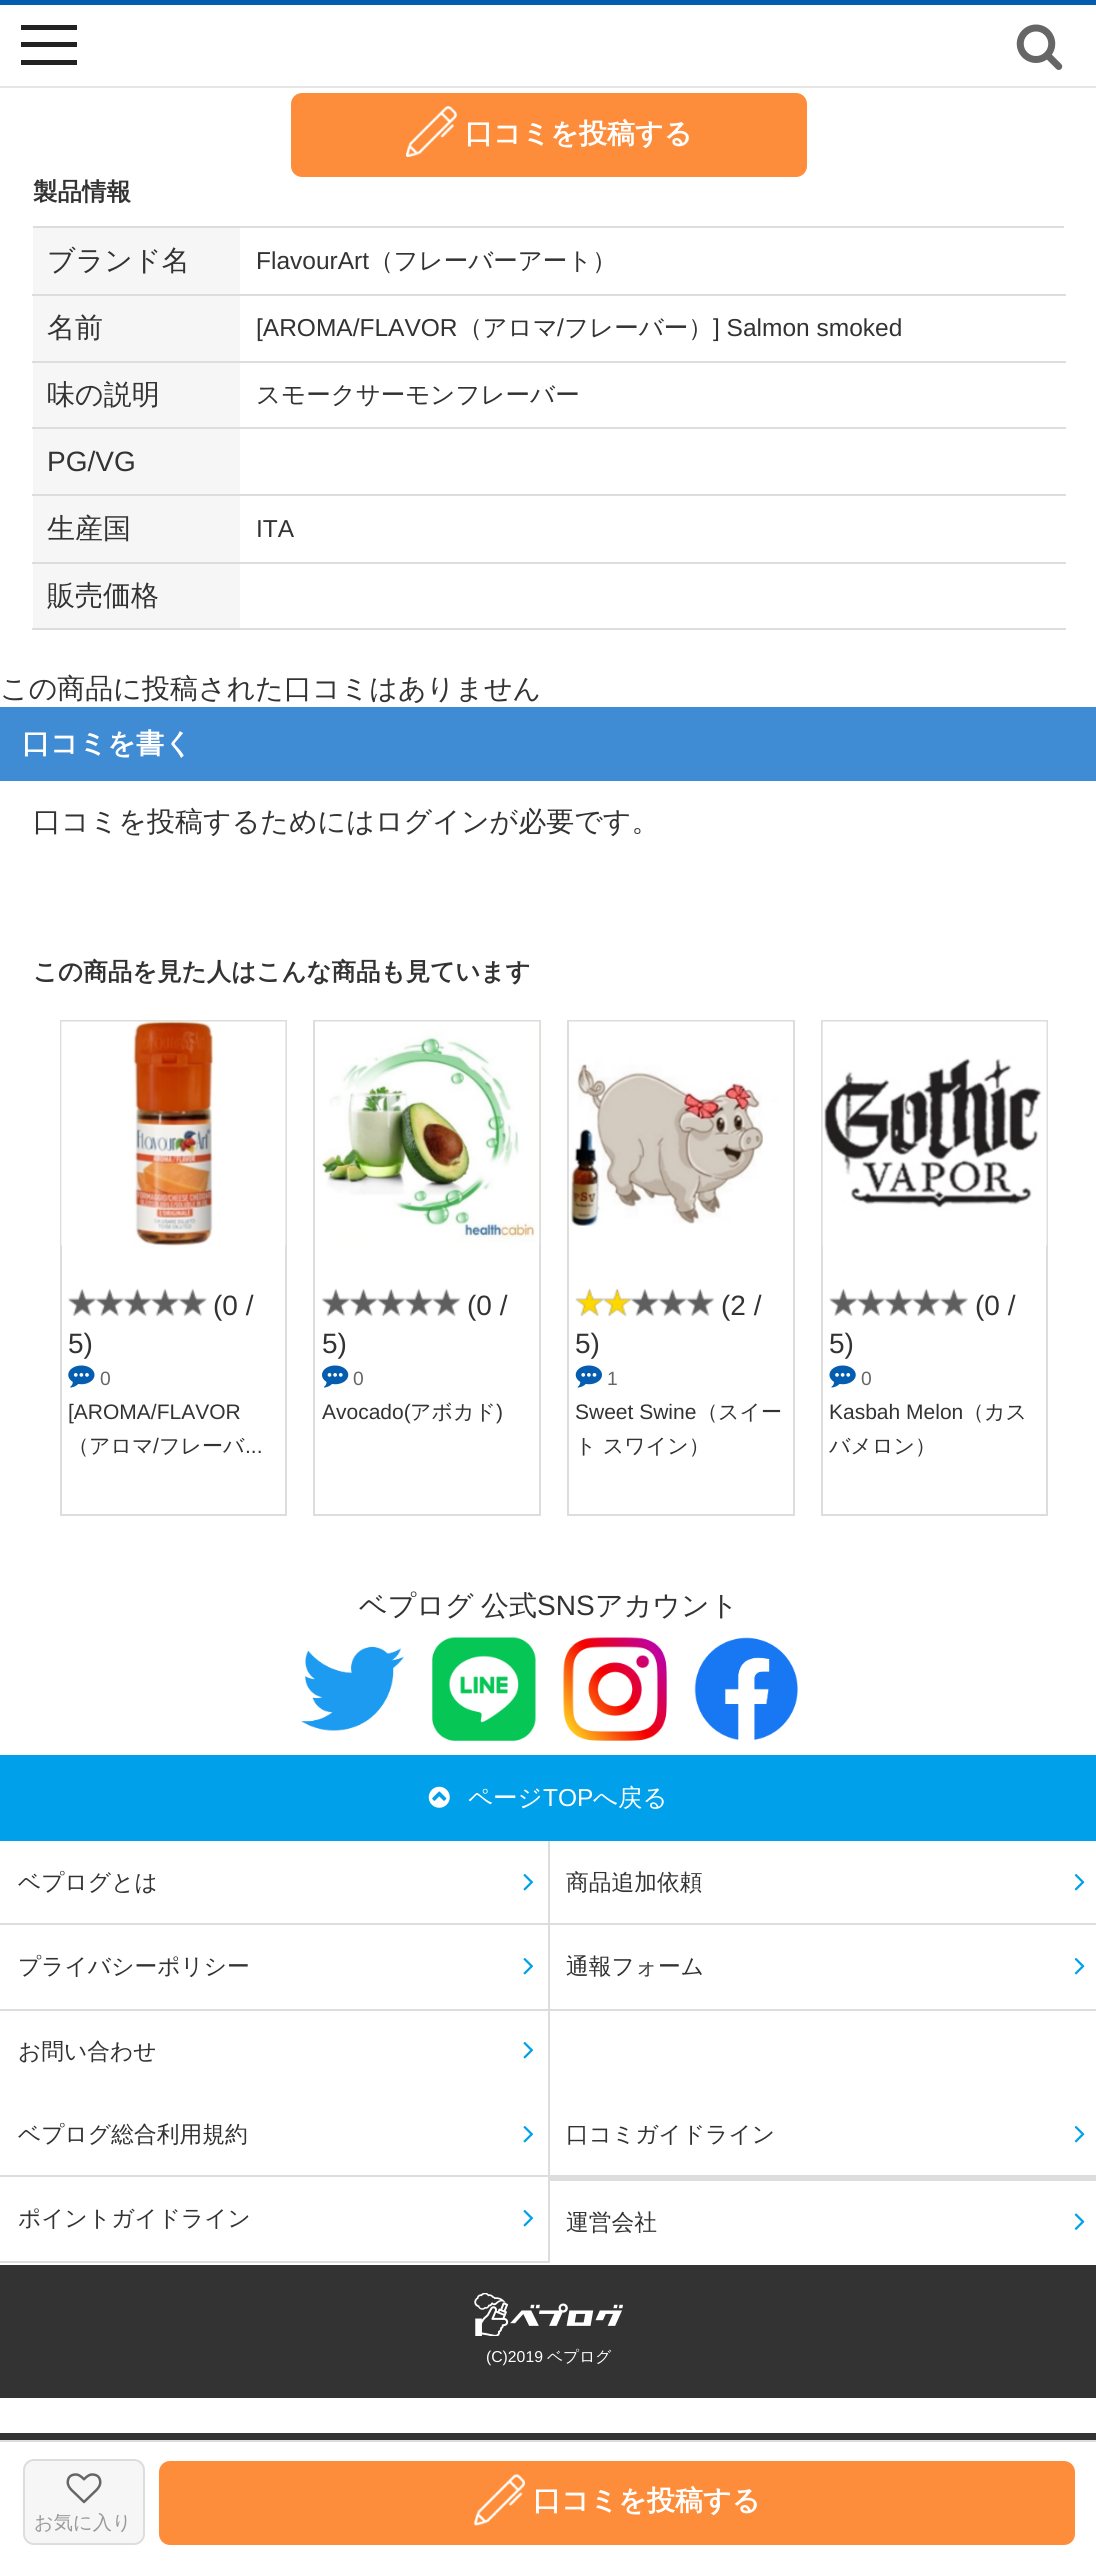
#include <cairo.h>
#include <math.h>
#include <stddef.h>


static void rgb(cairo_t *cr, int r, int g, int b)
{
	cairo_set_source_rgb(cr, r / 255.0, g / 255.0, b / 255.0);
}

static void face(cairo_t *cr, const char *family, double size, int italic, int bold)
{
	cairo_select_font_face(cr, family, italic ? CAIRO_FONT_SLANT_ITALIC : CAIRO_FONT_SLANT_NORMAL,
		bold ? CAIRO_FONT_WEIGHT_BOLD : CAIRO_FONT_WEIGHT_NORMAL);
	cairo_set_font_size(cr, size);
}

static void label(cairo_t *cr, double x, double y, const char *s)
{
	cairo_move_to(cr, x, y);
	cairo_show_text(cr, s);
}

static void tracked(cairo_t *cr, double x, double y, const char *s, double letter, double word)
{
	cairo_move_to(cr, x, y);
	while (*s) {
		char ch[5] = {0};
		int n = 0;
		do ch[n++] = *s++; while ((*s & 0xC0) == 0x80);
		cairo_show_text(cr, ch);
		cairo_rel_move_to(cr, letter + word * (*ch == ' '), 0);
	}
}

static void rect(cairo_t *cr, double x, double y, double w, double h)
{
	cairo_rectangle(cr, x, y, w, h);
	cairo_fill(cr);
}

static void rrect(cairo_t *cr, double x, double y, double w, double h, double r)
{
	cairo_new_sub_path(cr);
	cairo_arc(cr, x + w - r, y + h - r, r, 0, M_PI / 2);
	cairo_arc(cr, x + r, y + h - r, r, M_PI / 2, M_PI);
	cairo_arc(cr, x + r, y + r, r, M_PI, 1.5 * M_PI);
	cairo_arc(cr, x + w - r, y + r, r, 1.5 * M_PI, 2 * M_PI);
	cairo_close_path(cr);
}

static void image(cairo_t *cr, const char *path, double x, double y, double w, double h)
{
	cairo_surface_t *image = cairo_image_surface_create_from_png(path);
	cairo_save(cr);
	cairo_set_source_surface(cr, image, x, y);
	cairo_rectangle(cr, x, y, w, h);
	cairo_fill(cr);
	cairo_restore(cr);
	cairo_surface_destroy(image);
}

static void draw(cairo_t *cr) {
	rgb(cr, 255, 255, 255);
	cairo_paint(cr);
	rgb(cr, 4, 93, 175);
	rect(cr, 0, 0, 1096, 5);
	rgb(cr, 230, 230, 230);
	rect(cr, 0, 86, 1096, 2);
	image(cr, "image0.png", 1016, 24, 47, 46);
	rgb(cr, 34, 34, 34);
	rect(cr, 21, 42, 56, 5);
	rect(cr, 21, 25, 56, 5);
	rect(cr, 21, 60, 56, 5);
	rgb(cr, 254, 141, 59);
	rrect(cr, 291, 93, 516, 84, 11);
	cairo_fill(cr);
	image(cr, "image1.png", 406, 106, 51, 51);
	face(cr, "WenQuanYi Zen Hei", 28, 0, 1);
	rgb(cr, 255, 255, 255);
	label(cr, 465, 143, "口コミを投稿する");
	face(cr, "WenQuanYi Zen Hei", 24.5, 0, 1);
	rgb(cr, 51, 51, 51);
	label(cr, 33, 200, "製品情報");
	rgb(cr, 221, 221, 221);
	rect(cr, 33, 226, 1031, 2);
	rect(cr, 32, 294, 1034, 2);
	rgb(cr, 247, 246, 246);
	rect(cr, 33, 228, 207, 66);
	face(cr, "WenQuanYi Zen Hei Medium", 28, 0, 0);
	rgb(cr, 51, 51, 51);
	label(cr, 47, 270, "ブランド名");
	face(cr, "Liberation Sans", 24.5, 0, 0);
	label(cr, 256, 269, "FlavourArt");
	face(cr, "WenQuanYi Zen Hei Medium", 24.5, 0, 0);
	label(cr, 369, 269, "（フレーバーアート）");
	rgb(cr, 221, 221, 221);
	rect(cr, 32, 361, 1034, 2);
	rgb(cr, 247, 246, 246);
	rect(cr, 33, 296, 207, 65);
	face(cr, "WenQuanYi Zen Hei Medium", 28, 0, 0);
	rgb(cr, 51, 51, 51);
	label(cr, 47, 337, "名前");
	face(cr, "Liberation Sans", 24.5, 0, 0);
	label(cr, 256, 336, "[AROMA/FLAVOR");
	face(cr, "WenQuanYi Zen Hei Medium", 24.5, 0, 0);
	label(cr, 458, 336, "（アロマ");
	face(cr, "Liberation Sans", 24.5, 0, 0);
	label(cr, 557, 336, "/");
	face(cr, "WenQuanYi Zen Hei Medium", 24.5, 0, 0);
	label(cr, 564, 336, "フレーバー）");
	face(cr, "Liberation Sans", 24.5, 0, 0);
	label(cr, 713, 336, "] Salmon smoked");
	rgb(cr, 221, 221, 221);
	rect(cr, 32, 427, 1034, 2);
	rgb(cr, 247, 246, 246);
	rect(cr, 33, 363, 207, 64);
	face(cr, "WenQuanYi Zen Hei Medium", 28, 0, 0);
	rgb(cr, 51, 51, 51);
	label(cr, 47, 404, "味の説明");
	face(cr, "WenQuanYi Zen Hei Medium", 24.5, 0, 0);
	label(cr, 256, 403, "スモークサーモンフレーバー");
	rgb(cr, 221, 221, 221);
	rect(cr, 32, 494, 1034, 2);
	rgb(cr, 247, 246, 246);
	rect(cr, 33, 429, 207, 65);
	face(cr, "Liberation Sans", 28, 0, 0);
	rgb(cr, 51, 51, 51);
	label(cr, 47, 471, "PG/VG");
	rgb(cr, 221, 221, 221);
	rect(cr, 32, 562, 1034, 2);
	rgb(cr, 247, 246, 246);
	rect(cr, 33, 496, 207, 66);
	face(cr, "WenQuanYi Zen Hei Medium", 28, 0, 0);
	rgb(cr, 51, 51, 51);
	label(cr, 47, 538, "生産国");
	face(cr, "Liberation Sans", 24.5, 0, 0);
	label(cr, 256, 537, "ITA");
	rgb(cr, 221, 221, 221);
	rect(cr, 32, 628, 1034, 2);
	rgb(cr, 247, 246, 246);
	rect(cr, 33, 564, 207, 64);
	face(cr, "WenQuanYi Zen Hei Medium", 28, 0, 0);
	rgb(cr, 51, 51, 51);
	label(cr, 47, 605, "販売価格");
	label(cr, 0, 698, "この商品に投稿された口コミはありません");
	rgb(cr, 63, 140, 212);
	rect(cr, 0, 707, 1096, 74);
	face(cr, "WenQuanYi Zen Hei", 28, 0, 1);
	rgb(cr, 255, 255, 255);
	label(cr, 22, 753, "口コミを書く");
	face(cr, "WenQuanYi Zen Hei Medium", 28, 0, 0);
	rgb(cr, 51, 51, 51);
	label(cr, 33, 831, "口コミを投稿するためにはログインが必要です。");
	face(cr, "WenQuanYi Zen Hei", 24.5, 0, 1);
	label(cr, 33, 980, "この商品を見た人はこんな商品も見ています");
	cairo_rectangle(cr, 61, 1021, 225, 494);
	rgb(cr, 221, 221, 221);
	cairo_stroke(cr);
	image(cr, "image2.png", 61, 1021, 225, 225);
	image(cr, "image3.png", 68, 1288, 139, 28);
	face(cr, "Liberation Sans", 28, 0, 0);
	rgb(cr, 51, 51, 51);
	label(cr, 213, 1315, "(0 /");
	label(cr, 68, 1353, "5)");
	image(cr, "image4.png", 68, 1365, 27, 23);
	face(cr, "Liberation Sans", 19.25, 0, 0);
	rgb(cr, 102, 102, 102);
	label(cr, 100, 1385, "0");
	face(cr, "Liberation Sans", 21, 0, 0);
	rgb(cr, 51, 51, 51);
	label(cr, 68, 1419, "[AROMA/FLAVOR");
	face(cr, "WenQuanYi Zen Hei Medium", 21, 0, 0);
	label(cr, 68, 1453, "（アロマ");
	face(cr, "Liberation Sans", 21, 0, 0);
	label(cr, 153, 1453, "/");
	face(cr, "WenQuanYi Zen Hei Medium", 21, 0, 0);
	label(cr, 159, 1453, "フレーバ");
	face(cr, "Liberation Sans", 21, 0, 0);
	label(cr, 245, 1453, "...");
	cairo_rectangle(cr, 314, 1021, 226, 494);
	rgb(cr, 221, 221, 221);
	cairo_stroke(cr);
	image(cr, "image5.png", 315, 1021, 225, 224);
	image(cr, "image6.png", 321, 1288, 140, 28);
	face(cr, "Liberation Sans", 28, 0, 0);
	rgb(cr, 51, 51, 51);
	label(cr, 467, 1315, "(0 /");
	label(cr, 322, 1353, "5)");
	image(cr, "image7.png", 322, 1365, 27, 23);
	face(cr, "Liberation Sans", 19.25, 0, 0);
	rgb(cr, 102, 102, 102);
	label(cr, 353, 1385, "0");
	face(cr, "Liberation Sans", 21, 0, 0);
	rgb(cr, 51, 51, 51);
	label(cr, 322, 1419, "Avocado(");
	face(cr, "WenQuanYi Zen Hei Medium", 21, 0, 0);
	label(cr, 410, 1419, "アボカド");
	face(cr, "Liberation Sans", 21, 0, 0);
	label(cr, 496, 1419, ")");
	cairo_rectangle(cr, 568, 1021, 226, 494);
	rgb(cr, 221, 221, 221);
	cairo_stroke(cr);
	image(cr, "image8.png", 569, 1021, 224, 205);
	image(cr, "image9.png", 575, 1288, 140, 28);
	face(cr, "Liberation Sans", 28, 0, 0);
	rgb(cr, 51, 51, 51);
	label(cr, 721, 1315, "(2 /");
	label(cr, 575, 1353, "5)");
	image(cr, "image10.png", 575, 1365, 27, 23);
	face(cr, "Liberation Sans", 19.25, 0, 0);
	rgb(cr, 102, 102, 102);
	label(cr, 607, 1385, "1");
	face(cr, "Liberation Sans", 21, 0, 0);
	rgb(cr, 51, 51, 51);
	label(cr, 575, 1419, "Sweet Swine");
	face(cr, "WenQuanYi Zen Hei Medium", 21, 0, 0);
	label(cr, 697, 1419, "（スイー");
	label(cr, 575, 1453, "ト スワイン）");
	cairo_rectangle(cr, 822, 1021, 225, 494);
	rgb(cr, 221, 221, 221);
	cairo_stroke(cr);
	image(cr, "image11.png", 822, 1021, 225, 225);
	image(cr, "image12.png", 829, 1288, 139, 28);
	face(cr, "Liberation Sans", 28, 0, 0);
	rgb(cr, 51, 51, 51);
	label(cr, 975, 1315, "(0 /");
	label(cr, 829, 1353, "5)");
	image(cr, "image13.png", 829, 1365, 27, 23);
	face(cr, "Liberation Sans", 19.25, 0, 0);
	rgb(cr, 102, 102, 102);
	label(cr, 861, 1385, "0");
	face(cr, "Liberation Sans", 21, 0, 0);
	rgb(cr, 51, 51, 51);
	label(cr, 829, 1419, "Kasbah Melon");
	face(cr, "WenQuanYi Zen Hei Medium", 21, 0, 0);
	label(cr, 963, 1419, "（カス");
	label(cr, 829, 1453, "バメロン）");
	rgb(cr, 221, 221, 221);
	rect(cr, 0, 2440, 1096, 2);
	rgb(cr, 254, 141, 59);
	rrect(cr, 159, 2461, 916, 84, 11);
	cairo_fill(cr);
	image(cr, "image14.png", 474, 2474, 51, 52);
	face(cr, "WenQuanYi Zen Hei", 28, 0, 1);
	rgb(cr, 255, 255, 255);
	label(cr, 533, 2510, "口コミを投稿する");
	rgb(cr, 247, 246, 246);
	rrect(cr, 24, 2460, 120, 84, 10);
	cairo_fill_preserve(cr);
	rgb(cr, 221, 221, 221);
	cairo_stroke(cr);
	image(cr, "image15.png", 66, 2473, 36, 31);
	face(cr, "WenQuanYi Zen Hei Medium", 19.25, 0, 0);
	rgb(cr, 153, 153, 153);
	label(cr, 34, 2529, "お気に入り");
	face(cr, "WenQuanYi Zen Hei Medium", 28, 0, 0);
	rgb(cr, 51, 51, 51);
	tracked(cr, 359, 1615, "ベプログ 公式", 0, -1);
	face(cr, "Liberation Sans", 28, 0, 0);
	label(cr, 537, 1615, "SNS");
	face(cr, "WenQuanYi Zen Hei Medium", 28, 0, 0);
	label(cr, 595, 1615, "アカウント");
	image(cr, "image16.png", 301, 1646, 103, 85);
	image(cr, "image17.png", 432, 1637, 104, 104);
	image(cr, "image18.png", 563, 1637, 104, 104);
	image(cr, "image19.png", 694, 1637, 104, 103);
	rgb(cr, 0, 160, 234);
	rect(cr, 0, 1755, 1096, 86);
	image(cr, "image20.png", 428, 1786, 22, 22);
	face(cr, "WenQuanYi Zen Hei Medium", 24.5, 0, 0);
	rgb(cr, 255, 255, 255);
	label(cr, 468, 1806, "ページ");
	face(cr, "Liberation Sans", 24.5, 0, 0);
	label(cr, 543, 1806, "TOP");
	face(cr, "WenQuanYi Zen Hei Medium", 24.5, 0, 0);
	label(cr, 593, 1806, "へ戻る");
	rgb(cr, 221, 221, 221);
	rect(cr, 548, 1841, 2, 422);
	rect(cr, 0, 1923, 1096, 2);
	face(cr, "WenQuanYi Zen Hei Medium", 22.75, 0, 0);
	rgb(cr, 51, 51, 51);
	label(cr, 18, 1890, "ベプログとは");
	image(cr, "image21.png", 523, 1874, 11, 17);
	label(cr, 566, 1890, "商品追加依頼");
	image(cr, "image22.png", 1074, 1874, 11, 17);
	rgb(cr, 221, 221, 221);
	rect(cr, 0, 2009, 1096, 2);
	rgb(cr, 51, 51, 51);
	label(cr, 18, 1974, "プライバシーポリシー");
	image(cr, "image21.png", 523, 1958, 11, 17);
	label(cr, 566, 1974, "通報フォーム");
	image(cr, "image22.png", 1074, 1958, 11, 17);
	label(cr, 18, 2059, "お問い合わせ");
	image(cr, "image21.png", 523, 2042, 11, 17);
	rgb(cr, 221, 221, 221);
	rect(cr, 0, 2175, 1096, 2);
	rgb(cr, 51, 51, 51);
	label(cr, 18, 2142, "ベプログ総合利用規約");
	image(cr, "image21.png", 523, 2126, 11, 17);
	label(cr, 566, 2142, "口コミガイドライン");
	image(cr, "image22.png", 1074, 2126, 11, 17);
	rgb(cr, 221, 221, 221);
	rect(cr, 550, 2177, 546, 4);
	rect(cr, 0, 2261, 550, 2);
	rgb(cr, 51, 51, 51);
	label(cr, 18, 2226, "ポイントガイドライン");
	image(cr, "image21.png", 523, 2210, 11, 17);
	label(cr, 566, 2230, "運営会社");
	image(cr, "image23.png", 1074, 2213, 11, 17);
	rect(cr, 0, 2265, 1096, 133);
	image(cr, "image24.png", 474, 2293, 149, 43);
	face(cr, "Liberation Sans", 15.75, 0, 0);
	rgb(cr, 255, 255, 255);
	label(cr, 486, 2362, "(C)2019");
	face(cr, "WenQuanYi Zen Hei Medium", 15.75, 0, 0);
	label(cr, 547, 2362, "ベプログ");
	rgb(cr, 51, 51, 51);
	rect(cr, 0, 2433, 1096, 7);
}

int main(void) {
	cairo_surface_t *surface = cairo_image_surface_create(CAIRO_FORMAT_RGB24, 1096, 2562);
	cairo_t *cr = cairo_create(surface);
	cairo_font_options_t *options = cairo_font_options_create();
	cairo_font_options_set_hint_metrics(options, CAIRO_HINT_METRICS_OFF);
	cairo_font_options_set_hint_style(options, CAIRO_HINT_STYLE_NONE);
	cairo_set_font_options(cr, options);
	cairo_set_miter_limit(cr, 4);
	draw(cr);
	cairo_surface_write_to_png(surface, "render.png");
	cairo_font_options_destroy(options);
	cairo_destroy(cr);
	cairo_surface_destroy(surface);
	return 0;
}
